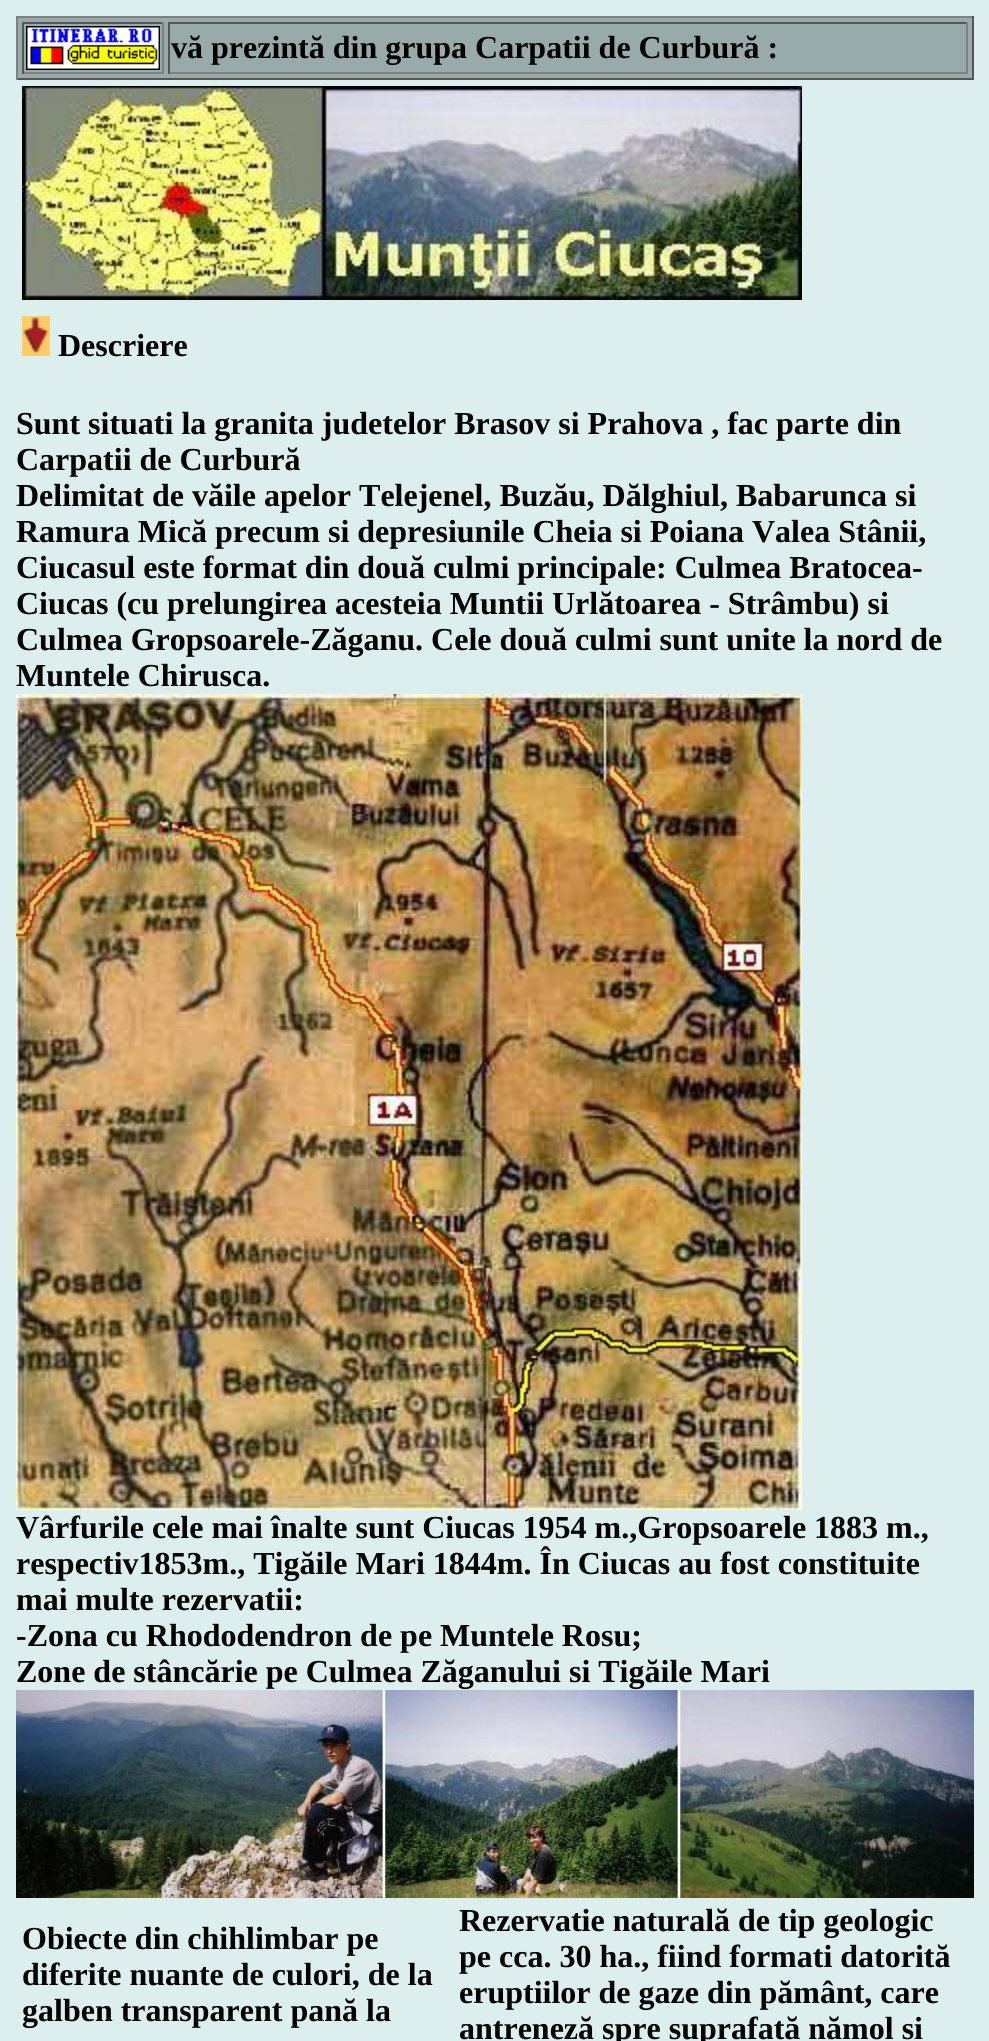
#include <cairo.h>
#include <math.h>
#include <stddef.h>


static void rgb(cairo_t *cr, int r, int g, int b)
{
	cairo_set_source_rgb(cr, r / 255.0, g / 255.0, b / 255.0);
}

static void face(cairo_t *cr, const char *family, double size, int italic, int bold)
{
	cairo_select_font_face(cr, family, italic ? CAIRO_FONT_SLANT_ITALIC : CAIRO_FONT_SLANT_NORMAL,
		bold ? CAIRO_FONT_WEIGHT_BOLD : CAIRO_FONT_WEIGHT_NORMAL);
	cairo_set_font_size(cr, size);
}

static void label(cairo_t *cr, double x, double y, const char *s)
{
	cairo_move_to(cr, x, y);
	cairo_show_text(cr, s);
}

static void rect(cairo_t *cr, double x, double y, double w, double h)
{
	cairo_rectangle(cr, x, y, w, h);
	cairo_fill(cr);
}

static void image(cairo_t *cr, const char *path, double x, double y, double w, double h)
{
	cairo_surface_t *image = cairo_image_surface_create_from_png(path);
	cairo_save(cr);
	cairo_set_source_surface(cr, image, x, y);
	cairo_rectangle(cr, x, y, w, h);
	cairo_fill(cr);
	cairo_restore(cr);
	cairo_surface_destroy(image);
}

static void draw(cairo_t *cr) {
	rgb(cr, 221, 238, 238);
	cairo_paint(cr);
	rgb(cr, 153, 170, 170);
	rect(cr, 18, 18, 954, 60);
	rgb(cr, 128, 128, 128);
	rect(cr, 16, 16, 958, 2);
	rgb(cr, 85, 85, 85);
	rect(cr, 972, 16, 2, 64);
	rect(cr, 16, 78, 958, 2);
	rgb(cr, 128, 128, 128);
	rect(cr, 16, 16, 2, 64);
	rgb(cr, 85, 85, 85);
	rect(cr, 22, 22, 142, 2);
	rgb(cr, 128, 128, 128);
	rect(cr, 162, 22, 2, 52);
	rect(cr, 22, 72, 142, 2);
	rgb(cr, 85, 85, 85);
	rect(cr, 22, 22, 2, 52);
	image(cr, "image0.png", 26, 26, 134, 44);
	rect(cr, 168, 22, 800, 2);
	rgb(cr, 128, 128, 128);
	rect(cr, 966, 22, 2, 52);
	rect(cr, 168, 72, 800, 2);
	rgb(cr, 85, 85, 85);
	rect(cr, 168, 22, 2, 52);
	face(cr, "Liberation Serif", 32, 0, 1);
	rgb(cr, 0, 0, 0);
	label(cr, 171, 58, "vă prezintă din grupa Carpatii de Curbură :");
	image(cr, "image1.png", 22, 86, 780, 214);
	image(cr, "image2.png", 22, 316, 28, 40);
	label(cr, 58, 356, "Descriere");
	label(cr, 16, 434, "Sunt situati la granita judetelor Brasov si Prahova , fac parte din");
	label(cr, 16, 470, "Carpatii de Curbură");
	label(cr, 16, 506, "Delimitat de văile apelor Telejenel, Buzău, Dălghiul, Babarunca si");
	label(cr, 16, 542, "Ramura Mică precum si depresiunile Cheia si Poiana Valea Stânii,");
	label(cr, 16, 578, "Ciucasul este format din două culmi principale: Culmea Bratocea-");
	label(cr, 16, 614, "Ciucas (cu prelungirea acesteia Muntii Urlătoarea - Strâmbu) si");
	label(cr, 16, 650, "Culmea Gropsoarele-Zăganu. Cele două culmi sunt unite la nord de");
	label(cr, 16, 686, "Muntele Chirusca.");
	image(cr, "image3.png", 16, 694, 786, 816);
	label(cr, 16, 1538, "Vârfurile cele mai înalte sunt Ciucas 1954 m.,Gropsoarele 1883 m.,");
	label(cr, 16, 1574, "respectiv1853m., Tigăile Mari 1844m. În Ciucas au fost constituite");
	label(cr, 16, 1610, "mai multe rezervatii:");
	label(cr, 16, 1646, "-Zona cu Rhododendron de pe Muntele Rosu;");
	label(cr, 16, 1682, "Zone de stâncărie pe Culmea Zăganului si Tigăile Mari");
	image(cr, "image4.png", 16, 1690, 958, 208);
	label(cr, 22, 1949, "Obiecte din chihlimbar pe");
	label(cr, 22, 1985, "diferite nuante de culori, de la");
	label(cr, 22, 2021, "galben transparent pană la");
	label(cr, 459, 1931, "Rezervatie naturală de tip geologic");
	label(cr, 459, 1967, "pe cca. 30 ha., fiind formati datorită");
	label(cr, 459, 2003, "eruptiilor de gaze din pământ, care");
	label(cr, 459, 2039, "antreneză spre suprafată nămol si");
}

int main(void) {
	cairo_surface_t *surface = cairo_image_surface_create(CAIRO_FORMAT_RGB24, 989, 2041);
	cairo_t *cr = cairo_create(surface);
	cairo_font_options_t *options = cairo_font_options_create();
	cairo_font_options_set_hint_metrics(options, CAIRO_HINT_METRICS_OFF);
	cairo_font_options_set_hint_style(options, CAIRO_HINT_STYLE_NONE);
	cairo_set_font_options(cr, options);
	cairo_set_miter_limit(cr, 4);
	draw(cr);
	cairo_surface_write_to_png(surface, "render.png");
	cairo_font_options_destroy(options);
	cairo_destroy(cr);
	cairo_surface_destroy(surface);
	return 0;
}
